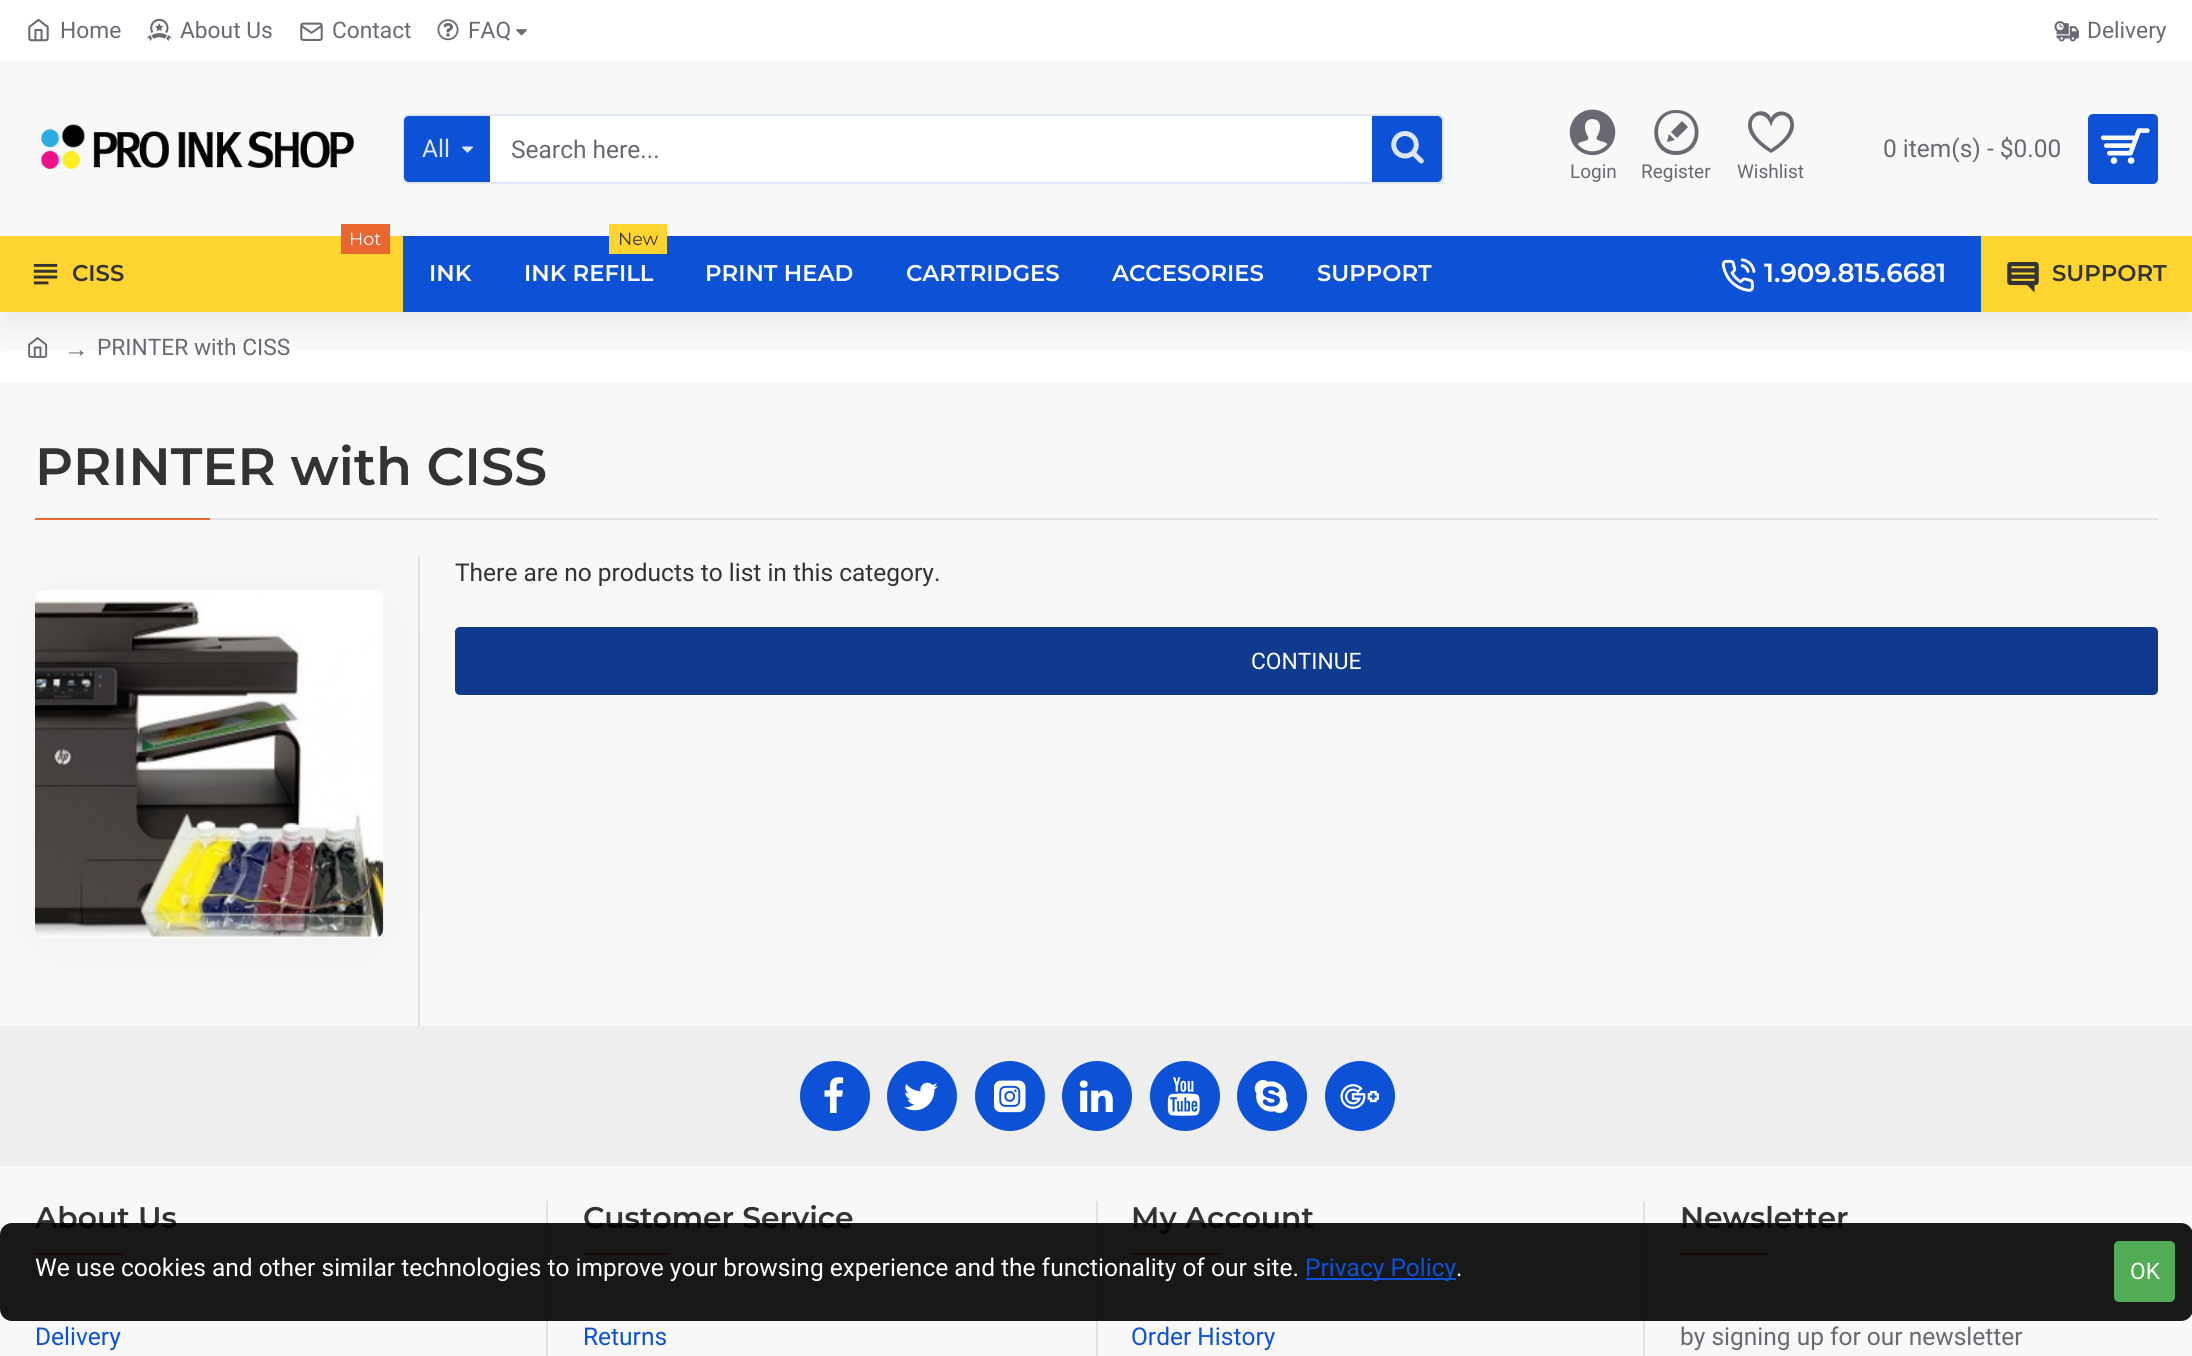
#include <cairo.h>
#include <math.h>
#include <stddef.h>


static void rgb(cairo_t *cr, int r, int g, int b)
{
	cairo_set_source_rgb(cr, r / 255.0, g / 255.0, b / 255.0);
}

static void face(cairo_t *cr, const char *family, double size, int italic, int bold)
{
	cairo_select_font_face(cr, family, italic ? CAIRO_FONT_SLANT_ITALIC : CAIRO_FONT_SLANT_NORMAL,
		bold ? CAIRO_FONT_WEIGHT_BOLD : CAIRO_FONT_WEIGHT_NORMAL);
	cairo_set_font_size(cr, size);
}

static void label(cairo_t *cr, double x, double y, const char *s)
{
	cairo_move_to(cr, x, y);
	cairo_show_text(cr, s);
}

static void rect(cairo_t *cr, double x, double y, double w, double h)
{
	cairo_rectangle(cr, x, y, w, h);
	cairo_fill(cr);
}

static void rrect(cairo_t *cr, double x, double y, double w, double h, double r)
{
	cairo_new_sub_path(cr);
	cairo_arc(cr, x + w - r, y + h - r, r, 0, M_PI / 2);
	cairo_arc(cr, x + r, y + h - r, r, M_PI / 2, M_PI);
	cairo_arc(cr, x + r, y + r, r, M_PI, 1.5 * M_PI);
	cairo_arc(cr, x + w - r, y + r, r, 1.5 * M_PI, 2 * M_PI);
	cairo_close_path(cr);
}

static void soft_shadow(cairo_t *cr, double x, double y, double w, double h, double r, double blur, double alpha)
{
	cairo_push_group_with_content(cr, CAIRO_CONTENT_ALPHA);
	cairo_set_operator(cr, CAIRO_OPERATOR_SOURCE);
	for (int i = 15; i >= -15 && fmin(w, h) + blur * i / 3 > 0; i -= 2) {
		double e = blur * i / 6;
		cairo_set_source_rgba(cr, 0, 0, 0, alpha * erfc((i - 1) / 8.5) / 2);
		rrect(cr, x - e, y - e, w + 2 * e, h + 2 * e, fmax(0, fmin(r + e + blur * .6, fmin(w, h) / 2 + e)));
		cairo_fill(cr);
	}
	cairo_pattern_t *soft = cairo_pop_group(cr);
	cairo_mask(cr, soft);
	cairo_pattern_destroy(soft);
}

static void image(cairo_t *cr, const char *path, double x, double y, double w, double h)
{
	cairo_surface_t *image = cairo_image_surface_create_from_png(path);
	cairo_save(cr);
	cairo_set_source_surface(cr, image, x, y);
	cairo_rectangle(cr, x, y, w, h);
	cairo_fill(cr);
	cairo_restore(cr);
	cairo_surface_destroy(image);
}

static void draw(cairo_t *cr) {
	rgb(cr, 248, 248, 248);
	cairo_paint(cr);
	rgb(cr, 255, 255, 255);
	rect(cr, 0, 312, 2192, 71);
	image(cr, "image14.png", 28, 337, 20, 21);
	cairo_save(cr);
	cairo_rectangle(cr, 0, 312, 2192, 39);
	cairo_clip(cr);
	rgb(cr, 0, 0, 0);
	soft_shadow(cr, 0, 18, 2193, 311, 0, 26, 0.1);
	cairo_restore(cr);
	rect(cr, 0, 0, 2192, 61);
	image(cr, "image0.png", 28, 18, 21, 24);
	face(cr, "Roboto", 22.75, 0, 0);
	rgb(cr, 105, 105, 115);
	label(cr, 60, 38, "Home");
	image(cr, "image1.png", 147, 18, 25, 24);
	label(cr, 180, 38, "About Us");
	image(cr, "image2.png", 300, 22, 23, 19);
	cairo_save(cr);
	cairo_rectangle(cr, 333, 14, 78, 33);
	cairo_clip(cr);
	label(cr, 332, 38, "Contact");
	cairo_restore(cr);
	image(cr, "image3.png", 437, 19, 22, 22);
	label(cr, 468, 38, "FAQ");
	image(cr, "image4.png", 516, 29, 11, 7);
	image(cr, "image5.png", 2054, 21, 25, 21);
	label(cr, 2087, 38, "Delivery");
	image(cr, "image6.png", 41, 124, 313, 45);
	rrect(cr, 404, 115, 1039, 68, 4);
	rgb(cr, 223, 231, 246);
	cairo_stroke(cr);
	rgb(cr, 13, 82, 214);
	cairo_new_path(cr);
	cairo_move_to(cr, 409, 116);
	cairo_line_to(cr, 490, 116);
	cairo_line_to(cr, 490, 182);
	cairo_line_to(cr, 409, 182);
	cairo_curve_to(cr, 406, 182, 404, 180, 404, 177);
	cairo_line_to(cr, 404, 121);
	cairo_curve_to(cr, 404, 118, 406, 116, 409, 116);
	cairo_close_path(cr);
	cairo_fill(cr);
	face(cr, "Roboto", 24.5, 0, 0);
	rgb(cr, 223, 231, 246);
	label(cr, 422, 157, "All");
	image(cr, "image7.png", 462, 146, 11, 7);
	rgb(cr, 255, 255, 255);
	rect(cr, 490, 116, 882, 66);
	rgb(cr, 105, 105, 115);
	label(cr, 511, 158, "Search here...");
	rgb(cr, 13, 82, 214);
	cairo_new_path(cr);
	cairo_move_to(cr, 1372, 116);
	cairo_line_to(cr, 1437, 116);
	cairo_curve_to(cr, 1440, 116, 1442, 118, 1442, 121);
	cairo_line_to(cr, 1442, 177);
	cairo_curve_to(cr, 1442, 180, 1440, 182, 1437, 182);
	cairo_line_to(cr, 1372, 182);
	cairo_close_path(cr);
	cairo_fill(cr);
	image(cr, "image8.png", 1391, 131, 33, 33);
	rgb(cr, 105, 105, 115);
	label(cr, 1883, 157, "0 item(s) - $0.00");
	rgb(cr, 13, 82, 214);
	rrect(cr, 2088, 114, 70, 70, 5);
	cairo_fill(cr);
	image(cr, "image9.png", 2100, 128, 50, 36);
	image(cr, "image10.png", 1569, 109, 47, 47);
	face(cr, "Roboto", 19, 0, 0);
	rgb(cr, 105, 105, 115);
	label(cr, 1570, 178, "Login");
	cairo_new_path(cr);
	cairo_move_to(cr, 1676, 113);
	cairo_curve_to(cr, 1701, 113, 1701, 151, 1676, 151);
	cairo_curve_to(cr, 1652, 151, 1652, 113, 1676, 113);
	cairo_close_path(cr);
	cairo_move_to(cr, 1676, 110);
	cairo_curve_to(cr, 1647, 110, 1647, 155, 1676, 155);
	cairo_curve_to(cr, 1706, 155, 1706, 110, 1676, 110);
	cairo_close_path(cr);
	cairo_move_to(cr, 1669, 134);
	cairo_line_to(cr, 1675, 140);
	cairo_line_to(cr, 1667, 142);
	cairo_close_path(cr);
	cairo_move_to(cr, 1688, 127);
	cairo_line_to(cr, 1677, 138);
	cairo_line_to(cr, 1671, 132);
	cairo_line_to(cr, 1682, 121);
	cairo_close_path(cr);
	cairo_fill(cr);
	label(cr, 1641, 178, "Register");
	cairo_new_path(cr);
	cairo_move_to(cr, 1771, 127);
	cairo_curve_to(cr, 1777, 101, 1811, 123, 1771, 149);
	cairo_curve_to(cr, 1731, 123, 1765, 101, 1771, 127);
	cairo_close_path(cr);
	cairo_move_to(cr, 1748, 125);
	cairo_curve_to(cr, 1748, 137, 1761, 147, 1771, 153);
	cairo_curve_to(cr, 1781, 147, 1794, 137, 1794, 125);
	cairo_curve_to(cr, 1794, 122, 1793, 119, 1792, 117);
	cairo_curve_to(cr, 1787, 110, 1775, 109, 1771, 118);
	cairo_curve_to(cr, 1766, 106, 1748, 111, 1748, 125);
	cairo_close_path(cr);
	cairo_fill(cr);
	label(cr, 1737, 178, "Wishlist");
	rgb(cr, 254, 212, 48);
	rect(cr, 0, 236, 403, 76);
	rgb(cr, 233, 102, 49);
	rect(cr, 341, 224, 49, 30);
	face(cr, "Montserrat", 17.5, 0, 0);
	rgb(cr, 255, 255, 255);
	label(cr, 349, 245, "Hot");
	image(cr, "image11.png", 33, 263, 25, 22);
	face(cr, "Montserrat SemiBold", 22.75, 0, 0);
	rgb(cr, 51, 51, 51);
	label(cr, 72, 281, "CISS");
	rgb(cr, 13, 82, 214);
	rect(cr, 403, 236, 1578, 76);
	rgb(cr, 255, 255, 255);
	label(cr, 429, 281, "INK");
	rgb(cr, 254, 212, 48);
	rect(cr, 609, 224, 58, 30);
	face(cr, "Montserrat", 17.5, 0, 0);
	rgb(cr, 51, 51, 51);
	label(cr, 618, 245, "New");
	face(cr, "Montserrat SemiBold", 22.75, 0, 0);
	rgb(cr, 255, 255, 255);
	label(cr, 524, 281, "INK REFILL");
	label(cr, 705, 281, "PRINT HEAD");
	label(cr, 906, 281, "CARTRIDGES");
	label(cr, 1112, 281, "ACCESORIES");
	label(cr, 1317, 281, "SUPPORT");
	image(cr, "image12.png", 1721, 258, 35, 34);
	face(cr, "Montserrat SemiBold", 26.25, 0, 0);
	label(cr, 1764, 282, "1.909.815.6681");
	rgb(cr, 254, 212, 48);
	rect(cr, 1981, 236, 211, 76);
	image(cr, "image13.png", 2007, 262, 32, 31);
	face(cr, "Montserrat SemiBold", 22.75, 0, 0);
	rgb(cr, 51, 51, 51);
	label(cr, 2052, 281, "SUPPORT");
	face(cr, "Liberation Serif", 24.5, 0, 0);
	rgb(cr, 105, 105, 115);
	label(cr, 64, 357, "→");
	face(cr, "Roboto", 22.75, 0, 0);
	label(cr, 97, 355, "PRINTER with CISS");
	rgb(cr, 226, 226, 226);
	rect(cr, 210, 518, 1948, 2);
	face(cr, "Montserrat SemiBold", 52.5, 0, 0);
	rgb(cr, 51, 51, 51);
	label(cr, 35, 485, "PRINTER with CISS");
	rgb(cr, 233, 102, 49);
	rect(cr, 35, 518, 175, 2);
	rgb(cr, 226, 226, 226);
	rect(cr, 418, 555, 2, 471);
	rgb(cr, 0, 0, 0);
	soft_shadow(cr, 53, 616, 313, 313, 0, 44, 0.05);
	image(cr, "image15.png", 35, 590, 349, 348);
	face(cr, "Roboto", 24.5, 0, 0);
	rgb(cr, 51, 51, 51);
	label(cr, 455, 581, "There are no products to list in this category.");
	rgb(cr, 15, 58, 141);
	rrect(cr, 455, 627, 1703, 68, 5);
	cairo_fill(cr);
	face(cr, "Roboto", 22.75, 0, 0);
	rgb(cr, 255, 255, 255);
	label(cr, 1251, 669, "CONTINUE");
	rgb(cr, 238, 238, 238);
	rect(cr, 0, 1026, 2192, 140);
	rgb(cr, 13, 82, 214);
	cairo_new_path(cr);
	cairo_arc(cr, 835, 1096, 35, 0, 2 * M_PI);
	cairo_fill(cr);
	image(cr, "image16.png", 824, 1077, 20, 36);
	cairo_arc(cr, 922, 1096, 35, 0, 2 * M_PI);
	cairo_fill(cr);
	image(cr, "image17.png", 904, 1082, 34, 29);
	cairo_arc(cr, 1010, 1096, 35, 0, 2 * M_PI);
	cairo_fill(cr);
	image(cr, "image18.png", 994, 1080, 32, 33);
	cairo_arc(cr, 1097, 1096, 35, 0, 2 * M_PI);
	cairo_fill(cr);
	image(cr, "image19.png", 1079, 1080, 34, 32);
	cairo_arc(cr, 1185, 1096, 35, 0, 2 * M_PI);
	cairo_fill(cr);
	image(cr, "image20.png", 1167, 1077, 33, 39);
	cairo_arc(cr, 1272, 1096, 35, 0, 2 * M_PI);
	cairo_fill(cr);
	image(cr, "image21.png", 1254, 1080, 34, 33);
	cairo_arc(cr, 1360, 1096, 35, 0, 2 * M_PI);
	cairo_fill(cr);
	image(cr, "image22.png", 1340, 1084, 39, 25);
	rgb(cr, 226, 226, 226);
	rect(cr, 546, 1201, 2, 155);
	face(cr, "Montserrat SemiBold", 29.75, 0, 0);
	rgb(cr, 51, 51, 51);
	label(cr, 35, 1228, "About Us");
	rgb(cr, 233, 102, 49);
	rect(cr, 35, 1253, 88, 2);
	face(cr, "Roboto", 24.5, 0, 0);
	rgb(cr, 13, 82, 214);
	label(cr, 35, 1345, "Delivery");
	rgb(cr, 226, 226, 226);
	rect(cr, 1096, 1201, 2, 155);
	face(cr, "Montserrat SemiBold", 29.75, 0, 0);
	rgb(cr, 51, 51, 51);
	label(cr, 583, 1228, "Customer Service");
	rgb(cr, 233, 102, 49);
	rect(cr, 583, 1253, 87, 2);
	face(cr, "Roboto", 24.5, 0, 0);
	rgb(cr, 13, 82, 214);
	label(cr, 583, 1345, "Returns");
	rgb(cr, 226, 226, 226);
	rect(cr, 1643, 1201, 2, 155);
	face(cr, "Montserrat SemiBold", 29.75, 0, 0);
	rgb(cr, 51, 51, 51);
	label(cr, 1131, 1228, "My Account");
	rgb(cr, 233, 102, 49);
	rect(cr, 1132, 1253, 88, 2);
	face(cr, "Roboto", 24.5, 0, 0);
	rgb(cr, 13, 82, 214);
	label(cr, 1131, 1345, "Order History");
	face(cr, "Montserrat SemiBold", 29.75, 0, 0);
	rgb(cr, 51, 51, 51);
	label(cr, 1680, 1228, "Newsletter");
	rgb(cr, 233, 102, 49);
	rect(cr, 1680, 1253, 88, 2);
	face(cr, "Roboto", 24.5, 0, 0);
	rgb(cr, 105, 105, 115);
	label(cr, 1680, 1345, "by signing up for our newsletter");
	cairo_set_source_rgba(cr, 0, 0, 0, 0.9);
	rrect(cr, 0, 1223, 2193, 98, 12);
	cairo_fill(cr);
	rgb(cr, 255, 255, 255);
	label(cr, 35, 1276, "We use cookies and other similar technologies to improve your browsing experience and the functionality of our site.");
	rgb(cr, 13, 82, 214);
	rect(cr, 1306, 1278, 150, 2);
	label(cr, 1305, 1276, "Privacy Policy");
	rgb(cr, 255, 255, 255);
	label(cr, 1456, 1276, ".");
	rgb(cr, 80, 173, 85);
	rrect(cr, 2114, 1241, 61, 61, 5);
	cairo_fill(cr);
	face(cr, "Roboto", 22.75, 0, 0);
	rgb(cr, 255, 255, 255);
	label(cr, 2130, 1279, "OK");
}

int main(void) {
	cairo_surface_t *surface = cairo_image_surface_create(CAIRO_FORMAT_RGB24, 2192, 1356);
	cairo_t *cr = cairo_create(surface);
	cairo_font_options_t *options = cairo_font_options_create();
	cairo_font_options_set_hint_metrics(options, CAIRO_HINT_METRICS_OFF);
	cairo_font_options_set_hint_style(options, CAIRO_HINT_STYLE_NONE);
	cairo_set_font_options(cr, options);
	cairo_set_miter_limit(cr, 4);
	draw(cr);
	cairo_surface_write_to_png(surface, "render.png");
	cairo_font_options_destroy(options);
	cairo_destroy(cr);
	cairo_surface_destroy(surface);
	return 0;
}
